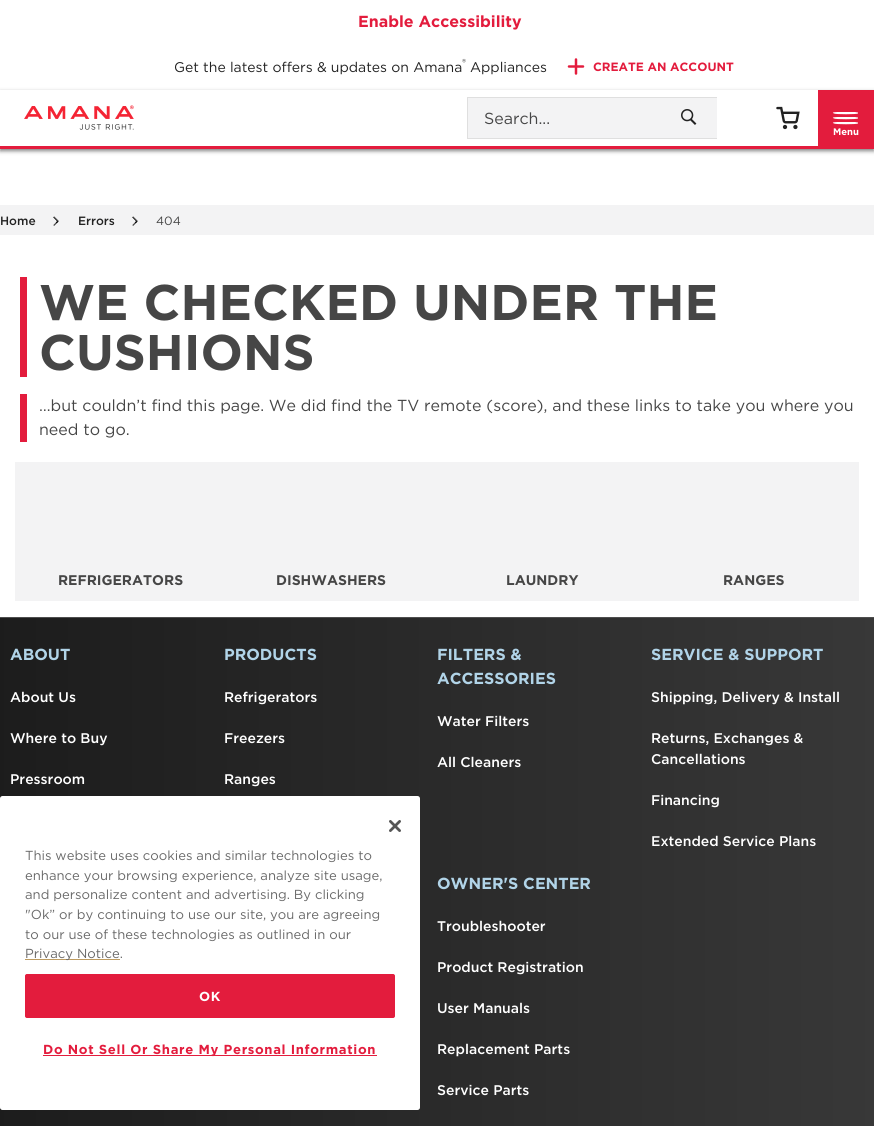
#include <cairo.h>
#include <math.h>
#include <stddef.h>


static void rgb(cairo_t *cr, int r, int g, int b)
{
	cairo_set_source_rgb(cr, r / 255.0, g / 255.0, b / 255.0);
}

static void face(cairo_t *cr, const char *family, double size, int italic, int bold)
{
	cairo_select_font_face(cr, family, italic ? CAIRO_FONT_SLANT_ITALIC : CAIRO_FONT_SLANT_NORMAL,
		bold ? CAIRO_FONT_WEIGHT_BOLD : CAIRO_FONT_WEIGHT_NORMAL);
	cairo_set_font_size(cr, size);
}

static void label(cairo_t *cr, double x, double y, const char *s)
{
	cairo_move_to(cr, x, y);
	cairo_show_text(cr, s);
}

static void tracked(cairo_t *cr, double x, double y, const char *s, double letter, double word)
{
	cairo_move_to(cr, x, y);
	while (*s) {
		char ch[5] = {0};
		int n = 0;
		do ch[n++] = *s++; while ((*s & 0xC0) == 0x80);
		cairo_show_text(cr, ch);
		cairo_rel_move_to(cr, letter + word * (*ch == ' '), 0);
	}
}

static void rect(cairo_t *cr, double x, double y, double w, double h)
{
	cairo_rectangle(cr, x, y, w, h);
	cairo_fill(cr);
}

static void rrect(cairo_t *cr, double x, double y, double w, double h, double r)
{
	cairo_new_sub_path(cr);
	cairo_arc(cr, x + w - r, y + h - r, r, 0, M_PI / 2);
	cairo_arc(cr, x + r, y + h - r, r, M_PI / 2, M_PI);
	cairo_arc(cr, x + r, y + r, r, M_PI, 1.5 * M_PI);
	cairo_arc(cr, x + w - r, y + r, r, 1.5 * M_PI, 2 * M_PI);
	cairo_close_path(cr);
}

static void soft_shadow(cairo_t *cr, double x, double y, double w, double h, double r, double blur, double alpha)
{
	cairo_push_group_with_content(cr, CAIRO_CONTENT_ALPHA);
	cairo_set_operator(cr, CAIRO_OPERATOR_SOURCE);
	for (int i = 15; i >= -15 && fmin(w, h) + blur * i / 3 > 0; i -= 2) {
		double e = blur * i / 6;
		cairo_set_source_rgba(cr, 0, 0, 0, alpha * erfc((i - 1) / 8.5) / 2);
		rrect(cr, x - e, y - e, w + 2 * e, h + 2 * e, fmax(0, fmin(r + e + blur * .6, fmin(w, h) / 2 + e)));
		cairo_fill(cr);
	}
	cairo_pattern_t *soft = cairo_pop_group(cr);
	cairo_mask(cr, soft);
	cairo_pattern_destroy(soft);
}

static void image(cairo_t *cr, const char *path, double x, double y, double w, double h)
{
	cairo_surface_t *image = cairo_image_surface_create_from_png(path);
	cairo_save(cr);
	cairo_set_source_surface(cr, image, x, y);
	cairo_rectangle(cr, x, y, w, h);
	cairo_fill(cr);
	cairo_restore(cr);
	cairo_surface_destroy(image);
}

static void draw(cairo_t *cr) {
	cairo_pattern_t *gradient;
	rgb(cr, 255, 255, 255);
	cairo_paint(cr);
	face(cr, "Gotham", 16, 0, 1);
	rgb(cr, 227, 28, 61);
	label(cr, 358, 27, "Enable Accessibility");
	face(cr, "Gotham", 10, 0, 0);
	rgb(cr, 34, 34, 34);
	label(cr, 462, 66, "®");
	face(cr, "Gotham", 14, 0, 0);
	label(cr, 174, 72, "Get the latest offers & updates on Amana");
	label(cr, 470, 72, "Appliances");
	image(cr, "image0.png", 567, 58, 18, 17);
	face(cr, "Gotham", 12, 0, 1);
	rgb(cr, 227, 28, 61);
	label(cr, 593, 71, "CREATE AN ACCOUNT");
	cairo_save(cr);
	cairo_set_fill_rule(cr, CAIRO_FILL_RULE_EVEN_ODD);
	cairo_new_path(cr);
	cairo_move_to(cr, 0, 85);
	cairo_line_to(cr, 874, 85);
	cairo_line_to(cr, 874, 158);
	cairo_line_to(cr, 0, 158);
	cairo_close_path(cr);
	cairo_move_to(cr, 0, 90);
	cairo_line_to(cr, 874, 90);
	cairo_line_to(cr, 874, 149);
	cairo_line_to(cr, 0, 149);
	cairo_close_path(cr);
	cairo_clip(cr);
	rgb(cr, 0, 0, 0);
	soft_shadow(cr, 0, 92, 874, 59, 0, 2, 0.5);
	cairo_restore(cr);
	rect(cr, 0, 146, 874, 3);
	image(cr, "image1.png", 24, 105, 110, 25);
	rgb(cr, 243, 243, 244);
	rect(cr, 468, 98, 249, 40);
	cairo_save(cr);
	cairo_rectangle(cr, 467, 97, 250, 42);
	cairo_clip(cr);
	cairo_rectangle(cr, 467.5, 97.5, 307, 41);
	rgb(cr, 223, 223, 223);
	cairo_set_line_width(cr, 1);
	cairo_stroke(cr);
	cairo_restore(cr);
	face(cr, "Gotham", 16, 0, 0);
	rgb(cr, 70, 70, 70);
	label(cr, 484, 124, "Search...");
	image(cr, "image2.png", 681, 109, 16, 16);
	image(cr, "image3.png", 776, 106, 24, 24);
	rgb(cr, 227, 28, 61);
	rect(cr, 818, 90, 56, 56);
	rgb(cr, 255, 255, 255);
	cairo_new_path(cr);
	cairo_move_to(cr, 839, 112);
	cairo_line_to(cr, 855, 112);
	cairo_line_to(cr, 858, 112.5);
	cairo_line_to(cr, 858, 113.5);
	cairo_curve_to(cr, 856.5, 114.5, 835.5, 114.5, 834, 113.5);
	cairo_curve_to(cr, 830, 112, 838, 112, 839, 112);
	cairo_close_path(cr);
	cairo_move_to(cr, 839, 117);
	cairo_line_to(cr, 855, 117);
	cairo_line_to(cr, 858, 117.5);
	cairo_line_to(cr, 858, 118.5);
	cairo_curve_to(cr, 856.5, 119.5, 835.5, 119.5, 834, 118.5);
	cairo_curve_to(cr, 830, 117, 838, 117, 839, 117);
	cairo_close_path(cr);
	cairo_move_to(cr, 839, 122);
	cairo_line_to(cr, 855, 122);
	cairo_line_to(cr, 858, 122.5);
	cairo_line_to(cr, 858, 123.5);
	cairo_curve_to(cr, 856.5, 124.5, 835.5, 124.5, 834, 123.5);
	cairo_curve_to(cr, 830, 122, 838, 122, 839, 122);
	cairo_close_path(cr);
	cairo_fill(cr);
	face(cr, "Gotham", 9.5, 0, 1);
	label(cr, 833, 135, "Menu");
	rgb(cr, 243, 243, 244);
	rect(cr, 0, 205, 874, 30);
	face(cr, "Gotham Medium", 12, 0, 0);
	rgb(cr, 34, 34, 34);
	label(cr, 0, 225, "Home");
	image(cr, "image4.png", 53, 216, 6, 10);
	image(cr, "image5.png", 53, 217, 5, 7);
	label(cr, 78, 225, "Errors");
	image(cr, "image4.png", 132, 216, 6, 10);
	image(cr, "image5.png", 132, 217, 5, 7);
	face(cr, "Gotham", 12, 0, 0);
	rgb(cr, 70, 70, 70);
	label(cr, 156, 225, "404");
	rgb(cr, 227, 28, 61);
	rect(cr, 20, 277, 7, 100);
	face(cr, "Gotham", 50, 0, 1);
	rgb(cr, 70, 70, 70);
	label(cr, 39, 320, "WE CHECKED UNDER THE");
	label(cr, 39, 370, "CUSHIONS");
	rgb(cr, 227, 28, 61);
	rect(cr, 20, 394, 7, 48);
	face(cr, "Gotham", 16, 0, 0);
	rgb(cr, 70, 70, 70);
	label(cr, 39, 411, "…but couldn’t find this page. We did find the TV remote (score), and these links to take you where you");
	label(cr, 39, 435, "need to go.");
	rgb(cr, 243, 243, 244);
	rect(cr, 15, 462, 844, 139);
	face(cr, "Gotham", 14, 0, 1);
	rgb(cr, 70, 70, 70);
	label(cr, 58, 585, "REFRIGERATORS");
	label(cr, 276, 585, "DISHWASHERS");
	label(cr, 506, 585, "LAUNDRY");
	label(cr, 723, 585, "RANGES");
	gradient = cairo_pattern_create_linear(-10, 1072, 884, 1072);
	cairo_pattern_add_color_stop_rgba(gradient, 0, 0.11, 0.11, 0.11, 1);
	cairo_pattern_add_color_stop_rgba(gradient, 1, 0.22, 0.22, 0.22, 1);
	cairo_set_source(cr, gradient);
	cairo_pattern_destroy(gradient);
	rect(cr, 0, 618, 874, 508);
	rgb(cr, 78, 78, 78);
	rect(cr, 0, 617, 874, 1);
	face(cr, "Gotham", 16, 0, 1);
	rgb(cr, 177, 212, 232);
	label(cr, 10, 660, "ABOUT");
	face(cr, "Gotham Medium", 14, 0, 0);
	rgb(cr, 255, 255, 255);
	label(cr, 10, 702, "About Us");
	label(cr, 10, 743, "Where to Buy");
	label(cr, 10, 784, "Pressroom");
	face(cr, "Gotham", 16, 0, 1);
	rgb(cr, 177, 212, 232);
	label(cr, 224, 660, "PRODUCTS");
	face(cr, "Gotham Medium", 14, 0, 0);
	rgb(cr, 255, 255, 255);
	label(cr, 224, 702, "Refrigerators");
	label(cr, 224, 743, "Freezers");
	label(cr, 224, 784, "Ranges");
	face(cr, "Gotham", 16, 0, 1);
	rgb(cr, 177, 212, 232);
	label(cr, 437, 660, "FILTERS &");
	label(cr, 437, 684, "ACCESSORIES");
	face(cr, "Gotham Medium", 14, 0, 0);
	rgb(cr, 255, 255, 255);
	label(cr, 437, 726, "Water Filters");
	label(cr, 437, 767, "All Cleaners");
	face(cr, "Gotham", 16, 0, 1);
	rgb(cr, 177, 212, 232);
	label(cr, 651, 660, "SERVICE & SUPPORT");
	face(cr, "Gotham Medium", 14, 0, 0);
	rgb(cr, 255, 255, 255);
	label(cr, 651, 702, "Shipping, Delivery & Install");
	label(cr, 651, 743, "Returns, Exchanges &");
	label(cr, 651, 764, "Cancellations");
	label(cr, 651, 805, "Financing");
	label(cr, 651, 846, "Extended Service Plans");
	face(cr, "Gotham", 16, 0, 1);
	rgb(cr, 177, 212, 232);
	label(cr, 437, 889, "OWNER'S CENTER");
	face(cr, "Gotham Medium", 14, 0, 0);
	rgb(cr, 255, 255, 255);
	label(cr, 437, 931, "Troubleshooter");
	label(cr, 437, 972, "Product Registration");
	label(cr, 437, 1013, "User Manuals");
	label(cr, 437, 1054, "Replacement Parts");
	label(cr, 437, 1095, "Service Parts");
	rrect(cr, 0, 796, 420, 314, 2.5);
	cairo_fill(cr);
	image(cr, "image6.png", 389, 820, 12, 12);
	face(cr, "Gotham", 13.1, 0, 0);
	rgb(cr, 105, 105, 105);
	label(cr, 25, 860, "This website uses cookies and similar technologies to");
	label(cr, 25, 880, "enhance your browsing experience, analyze site usage,");
	label(cr, 25, 899, "and personalize content and advertising. By clicking");
	label(cr, 25, 919, "\"Ok” or by continuing to use our site, you are agreeing");
	label(cr, 25, 939, "to our use of these technologies as outlined in our");
	rgb(cr, 189, 155, 96);
	rect(cr, 25, 959, 95, 1);
	rgb(cr, 105, 105, 105);
	label(cr, 25, 958, "Privacy Notice.");
	rgb(cr, 227, 28, 61);
	rrect(cr, 25.5, 974.5, 369, 43, 1.5);
	cairo_fill_preserve(cr);
	cairo_set_line_width(cr, 1);
	cairo_stroke(cr);
	face(cr, "Gotham", 13.1, 0, 1);
	rgb(cr, 255, 255, 255);
	tracked(cr, 199, 1001, "OK", 0.65, 0);
	rgb(cr, 227, 28, 61);
	rect(cr, 43, 1055, 334, 1);
	tracked(cr, 43, 1054, "Do Not Sell Or Share My Personal Information", 0.65, 0);
}

int main(void) {
	cairo_surface_t *surface = cairo_image_surface_create(CAIRO_FORMAT_RGB24, 874, 1126);
	cairo_t *cr = cairo_create(surface);
	cairo_font_options_t *options = cairo_font_options_create();
	cairo_font_options_set_hint_metrics(options, CAIRO_HINT_METRICS_OFF);
	cairo_font_options_set_hint_style(options, CAIRO_HINT_STYLE_NONE);
	cairo_set_font_options(cr, options);
	cairo_set_miter_limit(cr, 4);
	draw(cr);
	cairo_surface_write_to_png(surface, "render.png");
	cairo_font_options_destroy(options);
	cairo_destroy(cr);
	cairo_surface_destroy(surface);
	return 0;
}
